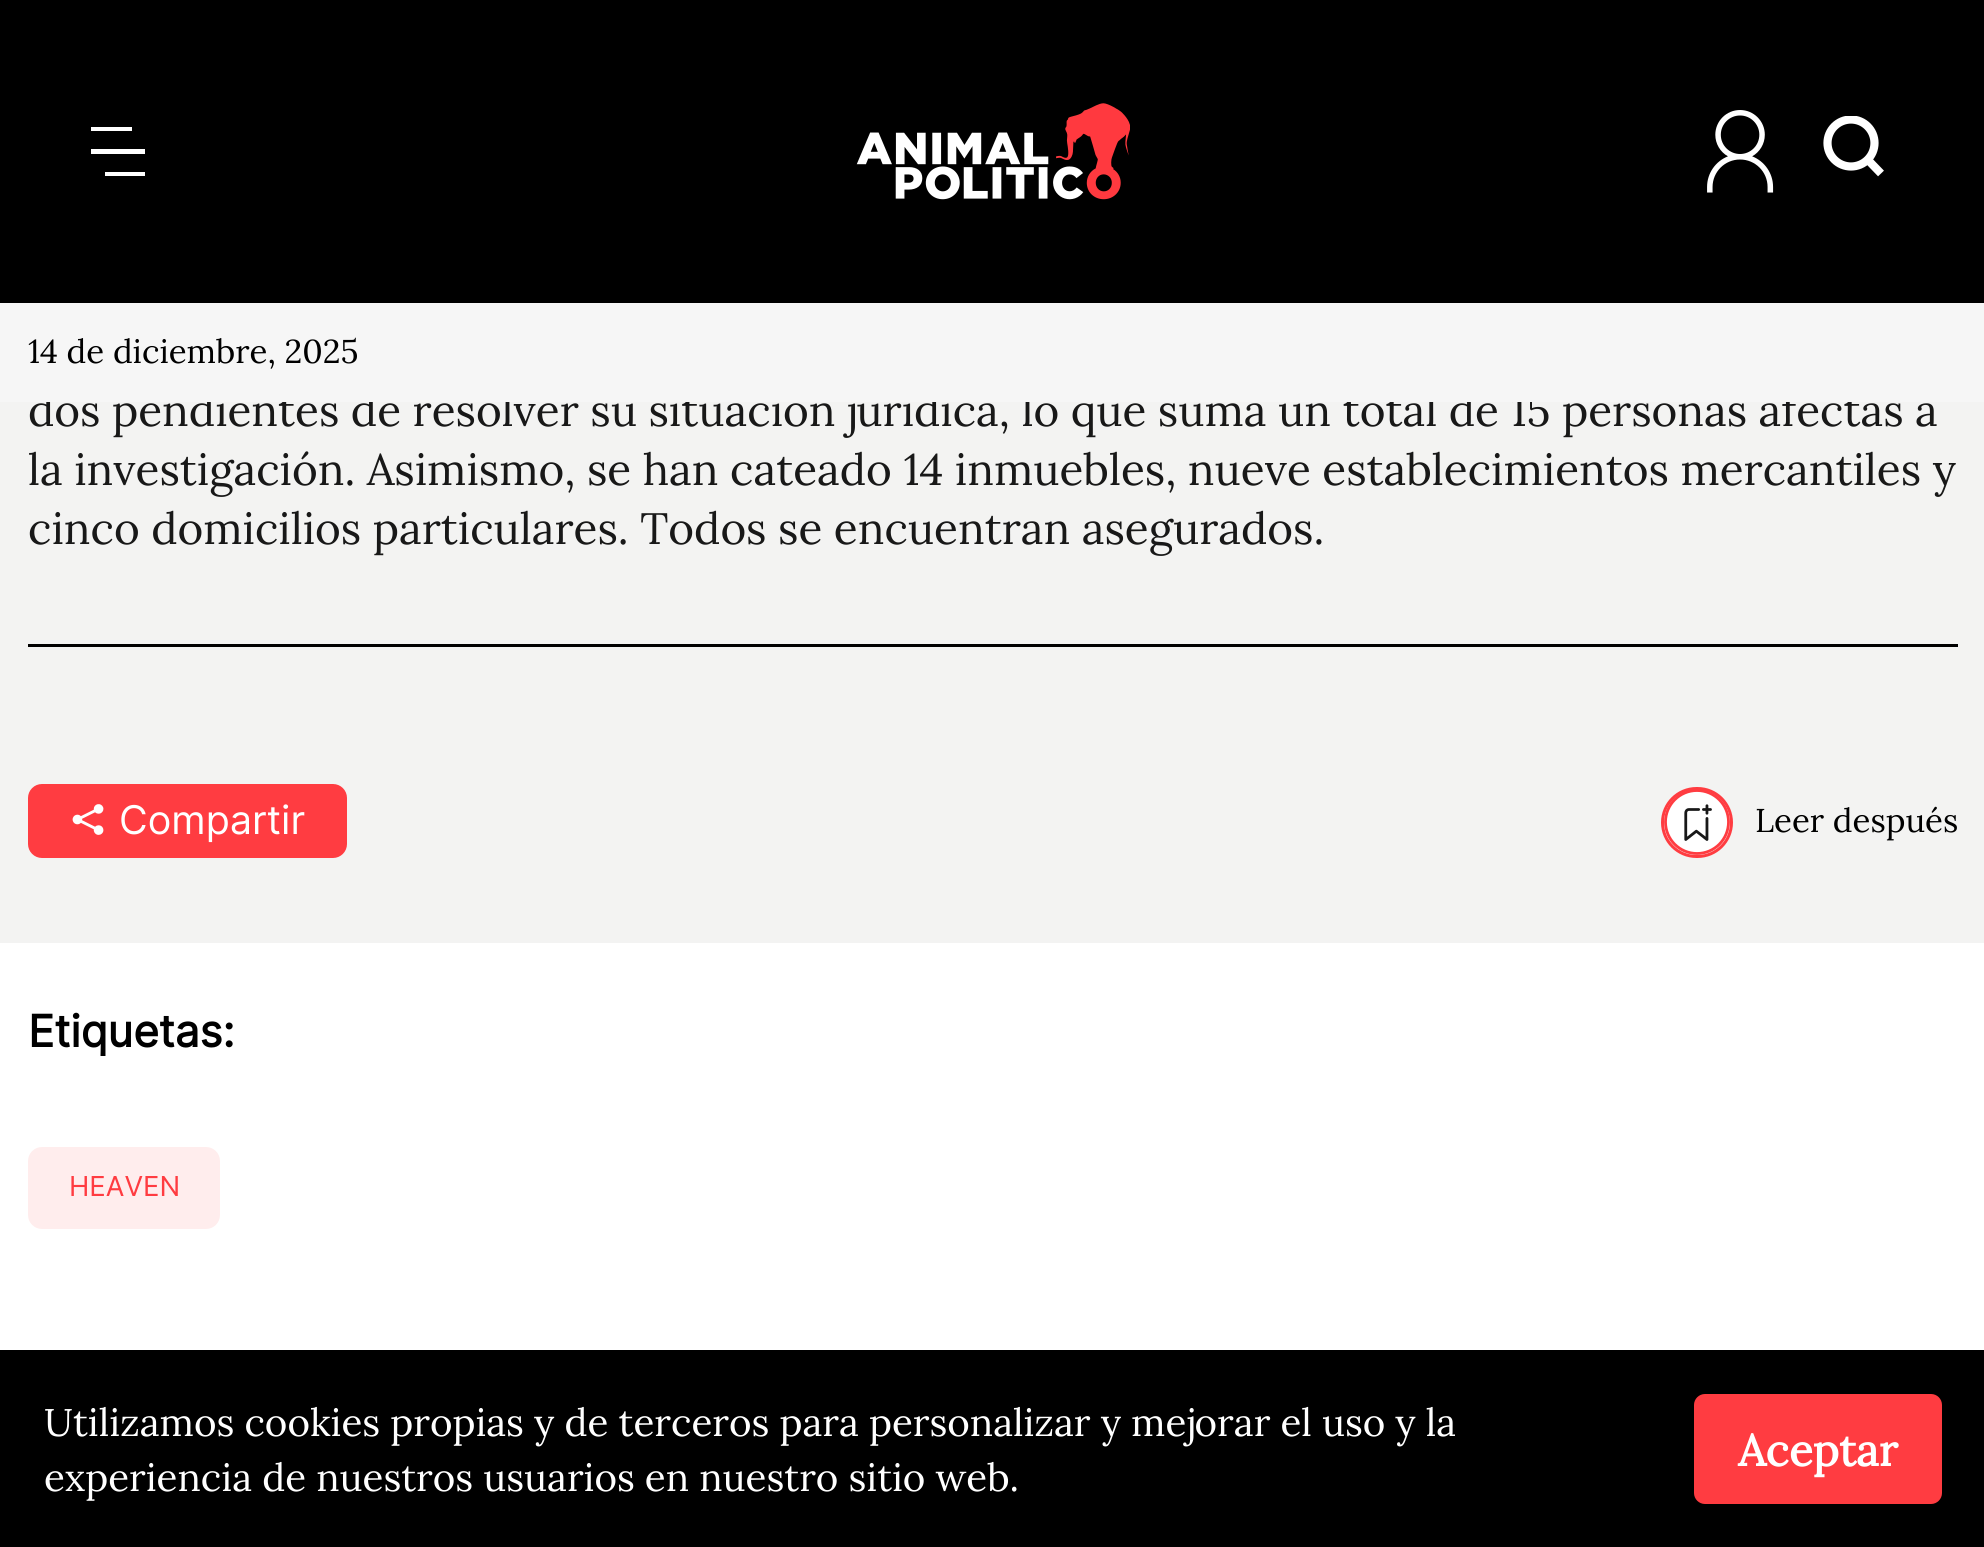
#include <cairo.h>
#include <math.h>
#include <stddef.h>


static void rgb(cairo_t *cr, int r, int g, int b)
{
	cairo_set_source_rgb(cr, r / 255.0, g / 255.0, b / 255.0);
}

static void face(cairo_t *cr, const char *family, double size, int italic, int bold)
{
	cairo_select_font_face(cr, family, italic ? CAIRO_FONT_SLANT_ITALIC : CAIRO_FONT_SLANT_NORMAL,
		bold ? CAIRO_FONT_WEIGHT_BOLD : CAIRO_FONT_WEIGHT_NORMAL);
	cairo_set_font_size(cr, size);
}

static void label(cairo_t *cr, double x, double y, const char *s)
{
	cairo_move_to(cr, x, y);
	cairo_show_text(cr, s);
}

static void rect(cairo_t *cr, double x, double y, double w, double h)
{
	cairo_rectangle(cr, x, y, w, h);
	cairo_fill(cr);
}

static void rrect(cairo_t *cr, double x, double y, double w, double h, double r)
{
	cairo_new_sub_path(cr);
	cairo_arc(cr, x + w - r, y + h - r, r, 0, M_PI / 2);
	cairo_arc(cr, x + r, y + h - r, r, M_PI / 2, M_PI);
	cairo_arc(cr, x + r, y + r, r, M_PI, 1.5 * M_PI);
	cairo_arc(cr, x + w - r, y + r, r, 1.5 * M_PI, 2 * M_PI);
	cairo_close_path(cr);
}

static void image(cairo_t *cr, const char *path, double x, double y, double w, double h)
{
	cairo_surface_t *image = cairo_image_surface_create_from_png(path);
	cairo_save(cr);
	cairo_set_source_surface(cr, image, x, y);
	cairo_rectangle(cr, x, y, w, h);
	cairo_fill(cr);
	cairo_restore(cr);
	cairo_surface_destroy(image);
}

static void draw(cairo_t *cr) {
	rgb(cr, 255, 255, 255);
	cairo_paint(cr);
	rgb(cr, 0, 0, 0);
	rect(cr, 0, 0, 1984, 303);
	image(cr, "image0.png", 856, 103, 274, 97);
	cairo_save(cr);
	cairo_rectangle(cr, 88, 127, 61, 49);
	cairo_clip(cr);
	rgb(cr, 255, 255, 255);
	cairo_new_path(cr);
	cairo_move_to(cr, 91, 126);
	cairo_line_to(cr, 132, 126);
	cairo_line_to(cr, 132, 131);
	cairo_line_to(cr, 91, 131);
	cairo_close_path(cr);
	cairo_move_to(cr, 91, 149);
	cairo_line_to(cr, 145, 149);
	cairo_line_to(cr, 145, 154);
	cairo_line_to(cr, 91, 154);
	cairo_close_path(cr);
	cairo_move_to(cr, 105, 172);
	cairo_line_to(cr, 145, 172);
	cairo_line_to(cr, 145, 176);
	cairo_line_to(cr, 105, 176);
	cairo_close_path(cr);
	cairo_fill(cr);
	cairo_restore(cr);
	image(cr, "image1.png", 1707, 110, 67, 83);
	cairo_save(cr);
	cairo_rectangle(cr, 1823, 116, 75, 74);
	cairo_clip(cr);
	cairo_arc(cr, 1851, 143, 23.5, 0, 2 * M_PI);
	rgb(cr, 255, 255, 255);
	cairo_set_line_width(cr, 8.2);
	cairo_stroke(cr);
	cairo_restore(cr);
	cairo_new_path(cr);
	cairo_move_to(cr, 1867.5, 159.5);
	cairo_line_to(cr, 1881, 173.5);
	rgb(cr, 255, 255, 255);
	cairo_set_line_width(cr, 8.2);
	cairo_stroke(cr);
	rgb(cr, 243, 243, 242);
	rect(cr, 0, 402, 1984, 541);
	face(cr, "Lora", 44, 0, 0);
	rgb(cr, 24, 24, 24);
	label(cr, 28, 426, "dos pendientes de resolver su situación jurídica, lo que suma un total de 15 personas afectas a");
	rgb(cr, 246, 246, 246);
	rect(cr, 0, 303, 1984, 99);
	face(cr, "Lora", 33, 0, 0);
	rgb(cr, 0, 0, 0);
	label(cr, 28, 363, "14 de diciembre, 2025");
	rect(cr, 28, 644, 1930, 3);
	face(cr, "Lora", 44, 0, 0);
	rgb(cr, 24, 24, 24);
	label(cr, 28, 485, "la investigación. Asimismo, se han cateado 14 inmuebles, nueve establecimientos mercantiles y");
	label(cr, 28, 544, "cinco domicilios particulares. Todos se encuentran asegurados.");
	rgb(cr, 255, 60, 65);
	rrect(cr, 28, 784, 319, 74, 14);
	cairo_fill(cr);
	image(cr, "image2.png", 72, 804, 32, 31);
	face(cr, "Inter", 39.5, 0, 0);
	rgb(cr, 255, 255, 255);
	label(cr, 119, 834, "Compartir");
	rrect(cr, 1662.5, 788.5, 69, 68, 34);
	rgb(cr, 255, 60, 65);
	cairo_set_line_width(cr, 3);
	cairo_stroke(cr);
	image(cr, "image3.png", 1664, 790, 66, 65);
	face(cr, "Lora", 33, 0, 0);
	rgb(cr, 0, 0, 0);
	label(cr, 1755, 832, "Leer después");
	face(cr, "Inter", 44, 0, 1);
	label(cr, 28, 1047, "Etiquetas:");
	rgb(cr, 255, 237, 237);
	rrect(cr, 28, 1147, 192, 82, 14);
	cairo_fill(cr);
	face(cr, "Inter", 27.5, 0, 0);
	rgb(cr, 255, 60, 65);
	label(cr, 69, 1196, "HEAVEN");
	rgb(cr, 0, 0, 0);
	rect(cr, 0, 1350, 1984, 197);
	face(cr, "Lora", 38.5, 0, 0);
	rgb(cr, 255, 255, 255);
	label(cr, 44, 1436, "Utilizamos cookies propias y de terceros para personalizar y mejorar el uso y la");
	label(cr, 44, 1491, "experiencia de nuestros usuarios en nuestro sitio web.");
	rgb(cr, 255, 60, 65);
	rrect(cr, 1694, 1394, 248, 110, 11);
	cairo_fill(cr);
	face(cr, "Lora", 44, 0, 1);
	rgb(cr, 255, 255, 255);
	label(cr, 1738, 1466, "Aceptar");
}

int main(void) {
	cairo_surface_t *surface = cairo_image_surface_create(CAIRO_FORMAT_RGB24, 1984, 1547);
	cairo_t *cr = cairo_create(surface);
	cairo_font_options_t *options = cairo_font_options_create();
	cairo_font_options_set_hint_metrics(options, CAIRO_HINT_METRICS_OFF);
	cairo_font_options_set_hint_style(options, CAIRO_HINT_STYLE_NONE);
	cairo_set_font_options(cr, options);
	cairo_set_miter_limit(cr, 4);
	draw(cr);
	cairo_surface_write_to_png(surface, "render.png");
	cairo_font_options_destroy(options);
	cairo_destroy(cr);
	cairo_surface_destroy(surface);
	return 0;
}
